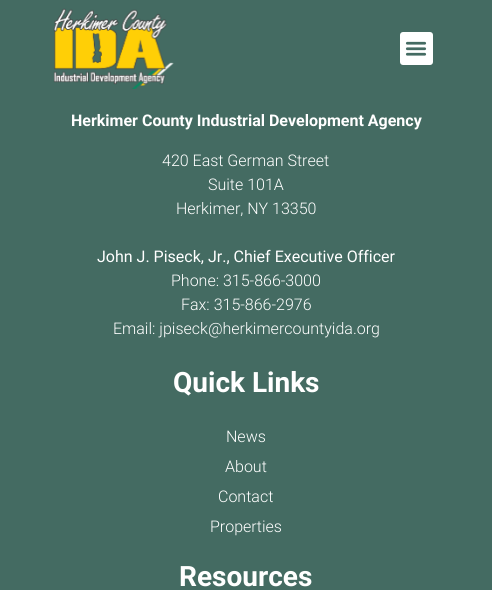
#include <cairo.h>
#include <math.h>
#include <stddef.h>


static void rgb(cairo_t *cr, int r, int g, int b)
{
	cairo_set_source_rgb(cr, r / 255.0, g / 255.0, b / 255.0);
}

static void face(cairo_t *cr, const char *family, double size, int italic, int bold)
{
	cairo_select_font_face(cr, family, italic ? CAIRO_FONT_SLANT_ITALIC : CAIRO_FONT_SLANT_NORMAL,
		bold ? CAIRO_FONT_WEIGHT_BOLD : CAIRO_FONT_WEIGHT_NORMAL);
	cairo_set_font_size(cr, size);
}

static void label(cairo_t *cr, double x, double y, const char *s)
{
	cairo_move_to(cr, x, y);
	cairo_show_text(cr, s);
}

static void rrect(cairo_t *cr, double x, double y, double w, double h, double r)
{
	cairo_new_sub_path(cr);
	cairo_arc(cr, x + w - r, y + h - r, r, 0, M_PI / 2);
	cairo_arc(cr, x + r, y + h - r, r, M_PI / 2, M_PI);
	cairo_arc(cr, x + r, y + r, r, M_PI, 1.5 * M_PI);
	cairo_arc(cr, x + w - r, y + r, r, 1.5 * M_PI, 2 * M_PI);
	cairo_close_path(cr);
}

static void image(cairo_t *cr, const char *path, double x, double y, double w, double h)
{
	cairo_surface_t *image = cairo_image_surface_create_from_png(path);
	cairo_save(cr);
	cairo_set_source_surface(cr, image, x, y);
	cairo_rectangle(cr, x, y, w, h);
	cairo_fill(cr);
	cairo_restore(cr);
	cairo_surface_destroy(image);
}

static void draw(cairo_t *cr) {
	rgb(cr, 68, 107, 98);
	cairo_paint(cr);
	image(cr, "image0.png", 53, 8, 121, 81);
	rgb(cr, 255, 255, 255);
	rrect(cr, 400, 32, 33, 33, 3);
	cairo_fill(cr);
	image(cr, "image1.png", 405, 41, 22, 15);
	face(cr, "Roboto", 16, 0, 1);
	label(cr, 71, 126, "Herkimer County Industrial Development Agency");
	face(cr, "Roboto Light", 16, 0, 0);
	label(cr, 162, 166, "420 East German Street");
	label(cr, 208, 190, "Suite 101A");
	label(cr, 176, 214, "Herkimer, NY 13350");
	face(cr, "Roboto", 16, 0, 0);
	label(cr, 97, 262, "John J. Piseck, Jr., Chief Executive Officer");
	face(cr, "Roboto Light", 16, 0, 0);
	label(cr, 171, 286, "Phone: 315-866-3000");
	label(cr, 181, 310, "Fax: 315-866-2976");
	label(cr, 113, 334, "Email: jpiseck@herkimercountyida.org");
	face(cr, "Roboto", 28, 0, 1);
	label(cr, 173, 392, "Quick Links");
	face(cr, "Roboto Light", 16, 0, 0);
	label(cr, 226, 442, "News");
	label(cr, 225, 472, "About");
	label(cr, 218, 502, "Contact");
	label(cr, 210, 532, "Properties");
	face(cr, "Roboto", 28, 0, 1);
	label(cr, 179, 586, "Resources");
}

int main(void) {
	cairo_surface_t *surface = cairo_image_surface_create(CAIRO_FORMAT_RGB24, 492, 590);
	cairo_t *cr = cairo_create(surface);
	cairo_font_options_t *options = cairo_font_options_create();
	cairo_font_options_set_hint_metrics(options, CAIRO_HINT_METRICS_OFF);
	cairo_font_options_set_hint_style(options, CAIRO_HINT_STYLE_NONE);
	cairo_set_font_options(cr, options);
	cairo_set_miter_limit(cr, 4);
	draw(cr);
	cairo_surface_write_to_png(surface, "render.png");
	cairo_font_options_destroy(options);
	cairo_destroy(cr);
	cairo_surface_destroy(surface);
	return 0;
}
